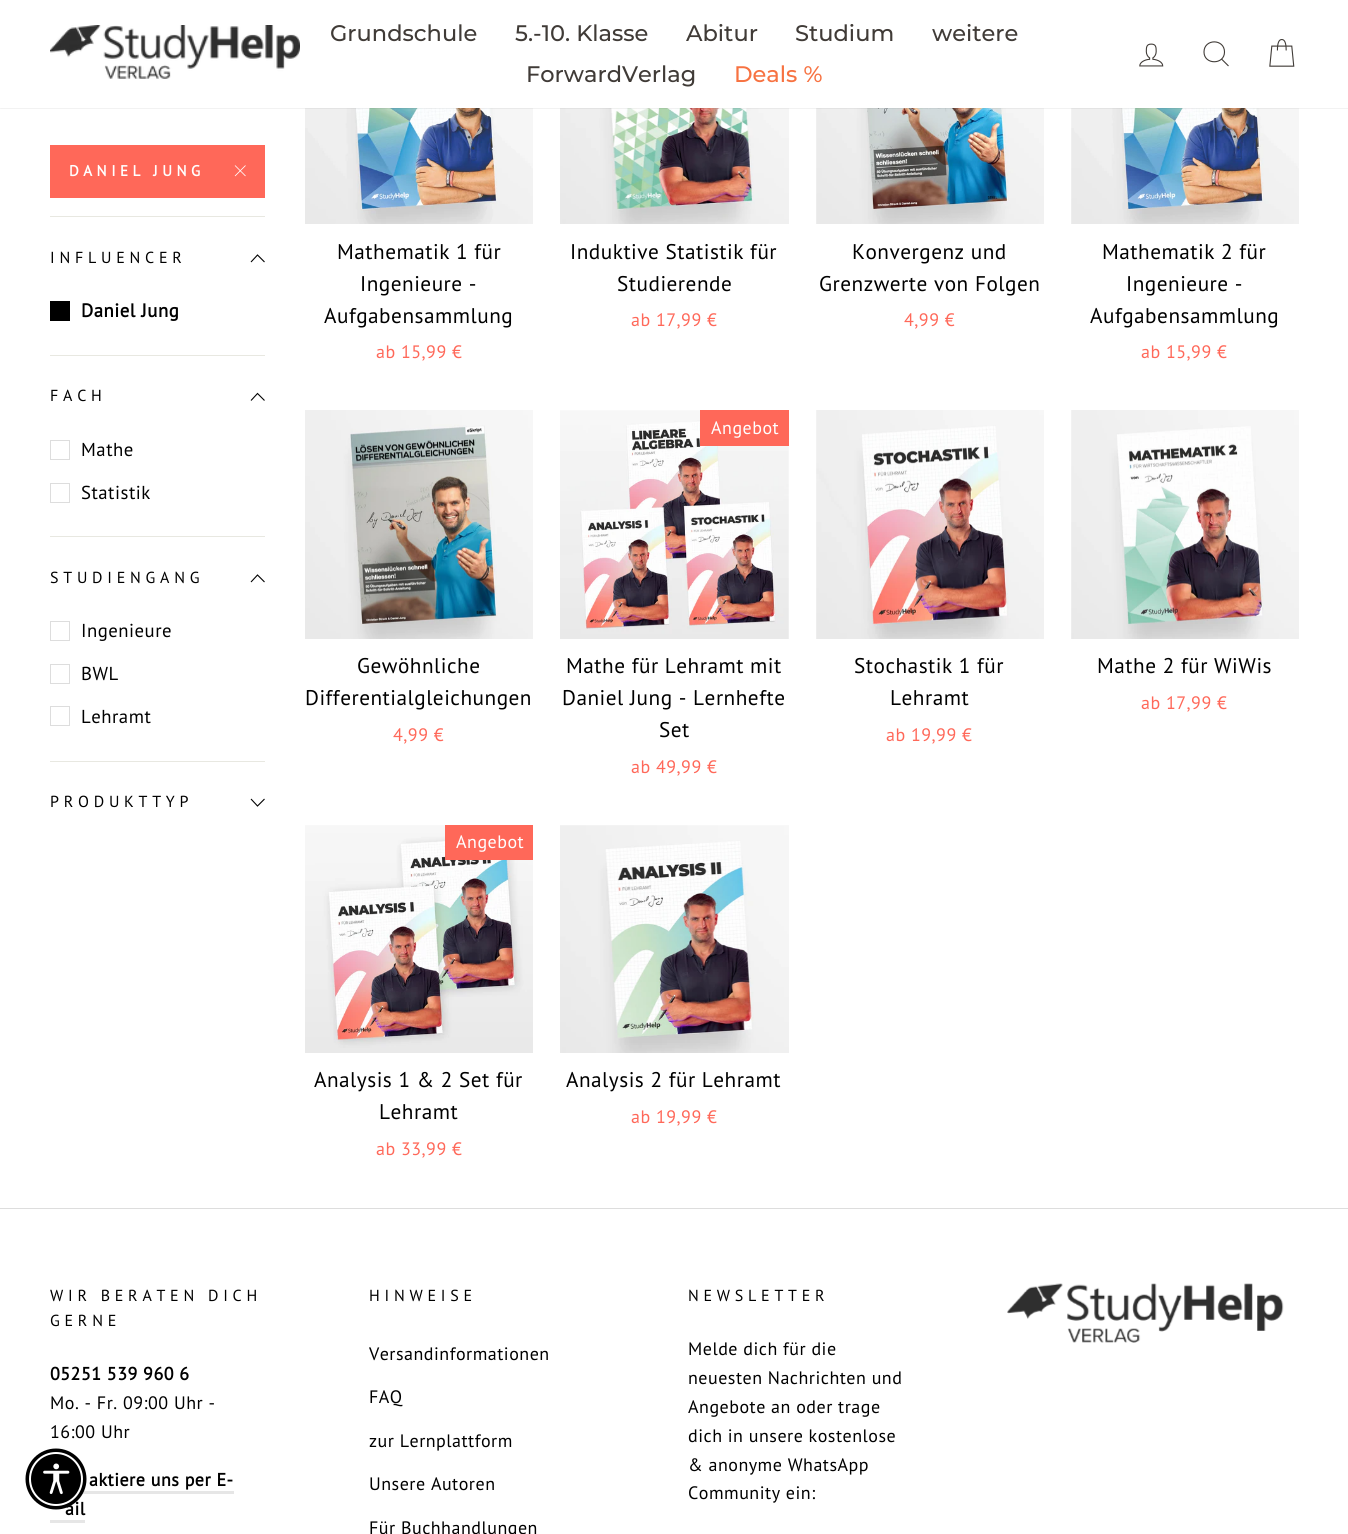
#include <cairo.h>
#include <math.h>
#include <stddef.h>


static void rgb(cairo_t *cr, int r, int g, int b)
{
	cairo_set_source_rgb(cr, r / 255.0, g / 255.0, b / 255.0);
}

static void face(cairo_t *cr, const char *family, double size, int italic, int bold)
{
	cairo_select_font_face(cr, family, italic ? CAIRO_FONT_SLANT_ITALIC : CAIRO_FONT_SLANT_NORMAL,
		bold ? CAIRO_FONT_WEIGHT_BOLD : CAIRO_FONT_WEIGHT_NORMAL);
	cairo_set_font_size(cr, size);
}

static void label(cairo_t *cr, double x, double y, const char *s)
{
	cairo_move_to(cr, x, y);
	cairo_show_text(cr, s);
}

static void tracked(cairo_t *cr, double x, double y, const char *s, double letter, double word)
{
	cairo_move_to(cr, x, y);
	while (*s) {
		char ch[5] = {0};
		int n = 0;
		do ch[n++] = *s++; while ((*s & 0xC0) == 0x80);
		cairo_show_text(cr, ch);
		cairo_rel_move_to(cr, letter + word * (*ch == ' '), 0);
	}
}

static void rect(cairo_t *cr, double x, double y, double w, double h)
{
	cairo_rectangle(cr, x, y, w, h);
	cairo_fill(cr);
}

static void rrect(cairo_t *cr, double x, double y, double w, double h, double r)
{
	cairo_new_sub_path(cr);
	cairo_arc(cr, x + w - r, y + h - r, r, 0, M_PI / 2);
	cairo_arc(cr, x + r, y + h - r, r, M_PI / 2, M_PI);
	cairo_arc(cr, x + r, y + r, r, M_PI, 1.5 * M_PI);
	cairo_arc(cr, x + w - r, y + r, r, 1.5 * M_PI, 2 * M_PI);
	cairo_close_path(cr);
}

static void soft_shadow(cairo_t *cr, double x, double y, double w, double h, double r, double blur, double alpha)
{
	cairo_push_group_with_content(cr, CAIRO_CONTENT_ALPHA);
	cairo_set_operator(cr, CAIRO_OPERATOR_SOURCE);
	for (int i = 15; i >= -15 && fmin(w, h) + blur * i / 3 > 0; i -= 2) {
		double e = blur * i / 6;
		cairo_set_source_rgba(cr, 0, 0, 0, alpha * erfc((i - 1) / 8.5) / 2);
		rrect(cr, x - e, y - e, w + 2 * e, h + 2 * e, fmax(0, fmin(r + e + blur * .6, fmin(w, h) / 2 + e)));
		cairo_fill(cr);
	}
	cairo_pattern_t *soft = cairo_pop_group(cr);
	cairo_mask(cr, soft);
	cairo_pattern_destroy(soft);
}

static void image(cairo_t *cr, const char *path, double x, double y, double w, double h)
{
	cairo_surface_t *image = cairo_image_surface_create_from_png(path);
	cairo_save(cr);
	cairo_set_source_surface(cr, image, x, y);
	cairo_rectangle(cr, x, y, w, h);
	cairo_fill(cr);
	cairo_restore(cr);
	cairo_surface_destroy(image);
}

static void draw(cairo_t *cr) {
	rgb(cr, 255, 255, 255);
	cairo_paint(cr);
	image(cr, "image3.png", 305, 108, 228, 116);
	image(cr, "image4.png", 560, 108, 229, 116);
	image(cr, "image5.png", 816, 108, 228, 116);
	image(cr, "image6.png", 1071, 108, 228, 116);
	rgb(cr, 0, 0, 0);
	soft_shadow(cr, 0, 0, 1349, 108, 0, 0.5, 0.2);
	rgb(cr, 255, 255, 255);
	rect(cr, 0, 0, 1348, 108);
	image(cr, "image0.png", 50, 25, 250, 54);
	face(cr, "Montserrat Medium", 22.5, 0, 0);
	rgb(cr, 64, 59, 55);
	label(cr, 330, 41, "Grundschule");
	label(cr, 515, 41, "5.-10. Klasse");
	label(cr, 686, 41, "Abitur");
	label(cr, 795, 41, "Studium");
	label(cr, 932, 41, "weitere");
	label(cr, 526, 82, "ForwardVerlag");
	rgb(cr, 247, 114, 65);
	label(cr, 734, 82, "Deals %");
	image(cr, "image1.png", 1139, 43, 25, 24);
	cairo_new_path(cr);
	cairo_move_to(cr, 1224.5, 52);
	cairo_curve_to(cr, 1224.5, 65, 1204, 65, 1204, 52);
	cairo_curve_to(cr, 1204, 38.5, 1224.5, 38.5, 1224.5, 52);
	cairo_close_path(cr);
	cairo_move_to(cr, 1228.5, 66);
	cairo_line_to(cr, 1221.5, 59);
	rgb(cr, 64, 59, 55);
	cairo_set_line_width(cr, 1.1);
	cairo_stroke(cr);
	image(cr, "image2.png", 1269, 39, 26, 28);
	rgb(cr, 255, 104, 89);
	rect(cr, 50, 145, 215, 53);
	face(cr, "PT Sans", 15, 0, 1);
	rgb(cr, 255, 255, 255);
	tracked(cr, 69, 176, "DANIEL JUNG", 4.5, 0);
	cairo_new_path(cr);
	cairo_move_to(cr, 235, 165.5);
	cairo_line_to(cr, 245.5, 176);
	cairo_move_to(cr, 245.5, 165.5);
	cairo_line_to(cr, 235, 176);
	cairo_set_line_width(cr, 0.8);
	cairo_stroke(cr);
	rgb(cr, 232, 232, 225);
	rect(cr, 50, 216, 215, 1);
	face(cr, "PT Sans", 16, 0, 0);
	rgb(cr, 0, 0, 0);
	tracked(cr, 50, 263, "INFLUENCER", 4.75, 0);
	cairo_new_path(cr);
	cairo_move_to(cr, 251, 262);
	cairo_line_to(cr, 257.5, 255);
	cairo_line_to(cr, 264.5, 262);
	cairo_set_line_width(cr, 1.1);
	cairo_stroke(cr);
	rect(cr, 50, 301, 20, 20);
	face(cr, "PT Sans", 18.75, 0, 1);
	tracked(cr, 81, 317, "Daniel Jung", 0.5, 0);
	rgb(cr, 232, 232, 225);
	rect(cr, 50, 355, 215, 1);
	face(cr, "PT Sans", 16, 0, 0);
	rgb(cr, 0, 0, 0);
	tracked(cr, 50, 401, "FACH", 4.75, 0);
	cairo_new_path(cr);
	cairo_move_to(cr, 251, 400.5);
	cairo_line_to(cr, 257.5, 393.5);
	cairo_line_to(cr, 264.5, 400.5);
	cairo_stroke(cr);
	cairo_rectangle(cr, 50.5, 440.5, 19, 19);
	rgb(cr, 221, 221, 221);
	cairo_set_line_width(cr, 1);
	cairo_stroke(cr);
	face(cr, "PT Sans", 18.75, 0, 0);
	rgb(cr, 0, 0, 0);
	tracked(cr, 81, 456, "Mathe", 0.5, 0);
	cairo_rectangle(cr, 50.5, 483.5, 19, 19);
	rgb(cr, 221, 221, 221);
	cairo_stroke(cr);
	rgb(cr, 0, 0, 0);
	tracked(cr, 81, 499, "Statistik", 0.5, 0);
	rgb(cr, 232, 232, 225);
	rect(cr, 50, 536, 215, 1);
	face(cr, "PT Sans", 16, 0, 0);
	rgb(cr, 0, 0, 0);
	tracked(cr, 50, 583, "STUDIENGANG", 4.75, 0);
	cairo_new_path(cr);
	cairo_move_to(cr, 251, 582);
	cairo_line_to(cr, 257.5, 575);
	cairo_line_to(cr, 264.5, 582);
	cairo_set_line_width(cr, 1.1);
	cairo_stroke(cr);
	cairo_rectangle(cr, 50.5, 621.5, 19, 19);
	rgb(cr, 221, 221, 221);
	cairo_set_line_width(cr, 1);
	cairo_stroke(cr);
	face(cr, "PT Sans", 18.75, 0, 0);
	rgb(cr, 0, 0, 0);
	tracked(cr, 81, 637, "Ingenieure", 0.5, 0);
	cairo_rectangle(cr, 50.5, 664.5, 19, 19);
	rgb(cr, 221, 221, 221);
	cairo_stroke(cr);
	rgb(cr, 0, 0, 0);
	tracked(cr, 81, 680, "BWL", 0.5, 0);
	cairo_rectangle(cr, 50.5, 706.5, 19, 19);
	rgb(cr, 221, 221, 221);
	cairo_stroke(cr);
	rgb(cr, 0, 0, 0);
	tracked(cr, 81, 723, "Lehramt", 0.5, 0);
	rgb(cr, 232, 232, 225);
	rect(cr, 50, 761, 215, 1);
	face(cr, "PT Sans", 16, 0, 0);
	rgb(cr, 0, 0, 0);
	tracked(cr, 50, 807, "PRODUKTTYP", 4.75, 0);
	cairo_new_path(cr);
	cairo_move_to(cr, 251, 799);
	cairo_line_to(cr, 257.5, 806);
	cairo_line_to(cr, 264.5, 799);
	cairo_set_line_width(cr, 1.1);
	cairo_stroke(cr);
	face(cr, "PT Sans", 21.25, 0, 0);
	tracked(cr, 337, 259, "Mathematik 1 für", 0.5, 0);
	tracked(cr, 360, 291, "Ingenieure -", 0.5, 0);
	tracked(cr, 324, 323, "Aufgabensammlung", 0.5, 0);
	face(cr, "PT Sans", 18, 0, 0);
	rgb(cr, 255, 104, 89);
	tracked(cr, 376, 358, "ab 15,99 €", 0.5, 0);
	face(cr, "PT Sans", 21.25, 0, 0);
	rgb(cr, 0, 0, 0);
	tracked(cr, 570, 259, "Induktive Statistik für", 0.5, 0);
	tracked(cr, 617, 291, "Studierende", 0.5, 0);
	face(cr, "PT Sans", 18, 0, 0);
	rgb(cr, 255, 104, 89);
	tracked(cr, 631, 326, "ab 17,99 €", 0.5, 0);
	face(cr, "PT Sans", 21.25, 0, 0);
	rgb(cr, 0, 0, 0);
	tracked(cr, 852, 259, "Konvergenz und", 0.5, 0);
	tracked(cr, 819, 291, "Grenzwerte von Folgen", 0.5, 0);
	face(cr, "PT Sans", 18, 0, 0);
	rgb(cr, 255, 104, 89);
	tracked(cr, 904, 326, "4,99 €", 0.5, 0);
	face(cr, "PT Sans", 21.25, 0, 0);
	rgb(cr, 0, 0, 0);
	tracked(cr, 1102, 259, "Mathematik 2 für", 0.5, 0);
	tracked(cr, 1126, 291, "Ingenieure -", 0.5, 0);
	tracked(cr, 1090, 323, "Aufgabensammlung", 0.5, 0);
	face(cr, "PT Sans", 18, 0, 0);
	rgb(cr, 255, 104, 89);
	tracked(cr, 1141, 358, "ab 15,99 €", 0.5, 0);
	image(cr, "image7.png", 305, 410, 228, 229);
	face(cr, "PT Sans", 21.25, 0, 0);
	rgb(cr, 0, 0, 0);
	tracked(cr, 357, 673, "Gewöhnliche", 0.5, 0);
	tracked(cr, 305, 705, "Differentialgleichungen", 0.5, 0);
	face(cr, "PT Sans", 18, 0, 0);
	rgb(cr, 255, 104, 89);
	tracked(cr, 393, 741, "4,99 €", 0.5, 0);
	image(cr, "image8.png", 560, 410, 229, 229);
	rect(cr, 700, 410, 89, 36);
	rgb(cr, 255, 255, 255);
	tracked(cr, 711, 434, "Angebot", 0.5, 0);
	face(cr, "PT Sans", 21.25, 0, 0);
	rgb(cr, 0, 0, 0);
	tracked(cr, 566, 673, "Mathe für Lehramt mit", 0.5, 0);
	tracked(cr, 562, 705, "Daniel Jung - Lernhefte", 0.5, 0);
	tracked(cr, 659, 737, "Set", 0.5, 0);
	face(cr, "PT Sans", 18, 0, 0);
	rgb(cr, 255, 104, 89);
	tracked(cr, 631, 773, "ab 49,99 €", 0.5, 0);
	image(cr, "image9.png", 816, 410, 228, 229);
	face(cr, "PT Sans", 21.25, 0, 0);
	rgb(cr, 0, 0, 0);
	tracked(cr, 854, 673, "Stochastik 1 für", 0.5, 0);
	tracked(cr, 890, 705, "Lehramt", 0.5, 0);
	face(cr, "PT Sans", 18, 0, 0);
	rgb(cr, 255, 104, 89);
	tracked(cr, 886, 741, "ab 19,99 €", 0.5, 0);
	image(cr, "image10.png", 1071, 410, 228, 229);
	face(cr, "PT Sans", 21.25, 0, 0);
	rgb(cr, 0, 0, 0);
	tracked(cr, 1097, 673, "Mathe 2 für WiWis", 0.5, 0);
	face(cr, "PT Sans", 18, 0, 0);
	rgb(cr, 255, 104, 89);
	tracked(cr, 1141, 709, "ab 17,99 €", 0.5, 0);
	image(cr, "image11.png", 305, 825, 228, 228);
	rect(cr, 445, 825, 88, 35);
	rgb(cr, 255, 255, 255);
	tracked(cr, 456, 848, "Angebot", 0.5, 0);
	face(cr, "PT Sans", 21.25, 0, 0);
	rgb(cr, 0, 0, 0);
	tracked(cr, 314, 1087, "Analysis 1 & 2 Set für", 0.5, 0);
	tracked(cr, 379, 1119, "Lehramt", 0.5, 0);
	face(cr, "PT Sans", 18, 0, 0);
	rgb(cr, 255, 104, 89);
	tracked(cr, 376, 1155, "ab 33,99 €", 0.5, 0);
	image(cr, "image12.png", 560, 825, 229, 228);
	face(cr, "PT Sans", 21.25, 0, 0);
	rgb(cr, 0, 0, 0);
	tracked(cr, 566, 1087, "Analysis 2 für Lehramt", 0.5, 0);
	face(cr, "PT Sans", 18, 0, 0);
	rgb(cr, 255, 104, 89);
	tracked(cr, 631, 1123, "ab 19,99 €", 0.5, 0);
	rgb(cr, 221, 221, 221);
	rect(cr, 0, 1208, 1348, 1);
	face(cr, "PT Sans", 16, 0, 0);
	rgb(cr, 0, 0, 0);
	tracked(cr, 50, 1301, "WIR BERATEN DICH", 4.75, 0);
	tracked(cr, 50, 1326, "GERNE", 4.75, 0);
	face(cr, "PT Sans", 18, 0, 1);
	tracked(cr, 50, 1380, "05251 539 960 6", 0.5, 0);
	face(cr, "PT Sans", 18, 0, 0);
	tracked(cr, 50, 1409, "Mo. - Fr. 09:00 Uhr -", 0.5, 0);
	tracked(cr, 50, 1438, "16:00 Uhr", 0.5, 0);
	face(cr, "PT Sans", 18, 0, 1);
	tracked(cr, 89, 1486, "aktiere uns per E-", 0.5, 0);
	rgb(cr, 230, 230, 230);
	rect(cr, 82, 1491, 152, 3);
	rgb(cr, 0, 0, 0);
	tracked(cr, 65, 1515, "ail", 0.5, 0);
	rgb(cr, 230, 230, 230);
	rect(cr, 50, 1520, 35, 3);
	face(cr, "PT Sans", 16, 0, 0);
	rgb(cr, 0, 0, 0);
	tracked(cr, 369, 1301, "HINWEISE", 4.75, 0);
	face(cr, "PT Sans", 18, 0, 0);
	tracked(cr, 369, 1360, "Versandinformationen", 0.5, 0);
	tracked(cr, 369, 1403, "FAQ", 0.5, 0);
	tracked(cr, 369, 1447, "zur Lernplattform", 0.5, 0);
	tracked(cr, 369, 1490, "Unsere Autoren", 0.5, 0);
	tracked(cr, 369, 1534, "Für Buchhandlungen", 0.5, 0);
	face(cr, "PT Sans", 16, 0, 0);
	tracked(cr, 688, 1301, "NEWSLETTER", 4.75, 0);
	face(cr, "PT Sans", 18, 0, 0);
	tracked(cr, 688, 1355, "Melde dich für die", 0.5, 0);
	tracked(cr, 688, 1384, "neuesten Nachrichten und", 0.5, 0);
	tracked(cr, 688, 1413, "Angebote an oder trage", 0.5, 0);
	tracked(cr, 688, 1442, "dich in unsere kostenlose", 0.5, 0);
	tracked(cr, 688, 1471, "& anonyme WhatsApp", 0.5, 0);
	tracked(cr, 688, 1499, "Community ein:", 0.5, 0);
	image(cr, "image13.png", 1007, 1283, 277, 60);
	cairo_arc(cr, 56, 1479, 30.5, 0, 2 * M_PI);
	cairo_fill(cr);
	rgb(cr, 255, 255, 255);
	cairo_arc(cr, 56, 1479, 27, 0, 2 * M_PI);
	cairo_fill(cr);
	rgb(cr, 0, 0, 0);
	cairo_arc(cr, 56, 1479, 25, 0, 2 * M_PI);
	cairo_fill(cr);
	image(cr, "image14.png", 43, 1463, 27, 32);
}

int main(void) {
	cairo_surface_t *surface = cairo_image_surface_create(CAIRO_FORMAT_RGB24, 1348, 1534);
	cairo_t *cr = cairo_create(surface);
	cairo_font_options_t *options = cairo_font_options_create();
	cairo_font_options_set_hint_metrics(options, CAIRO_HINT_METRICS_OFF);
	cairo_font_options_set_hint_style(options, CAIRO_HINT_STYLE_NONE);
	cairo_set_font_options(cr, options);
	cairo_set_miter_limit(cr, 4);
	draw(cr);
	cairo_surface_write_to_png(surface, "render.png");
	cairo_font_options_destroy(options);
	cairo_destroy(cr);
	cairo_surface_destroy(surface);
	return 0;
}
